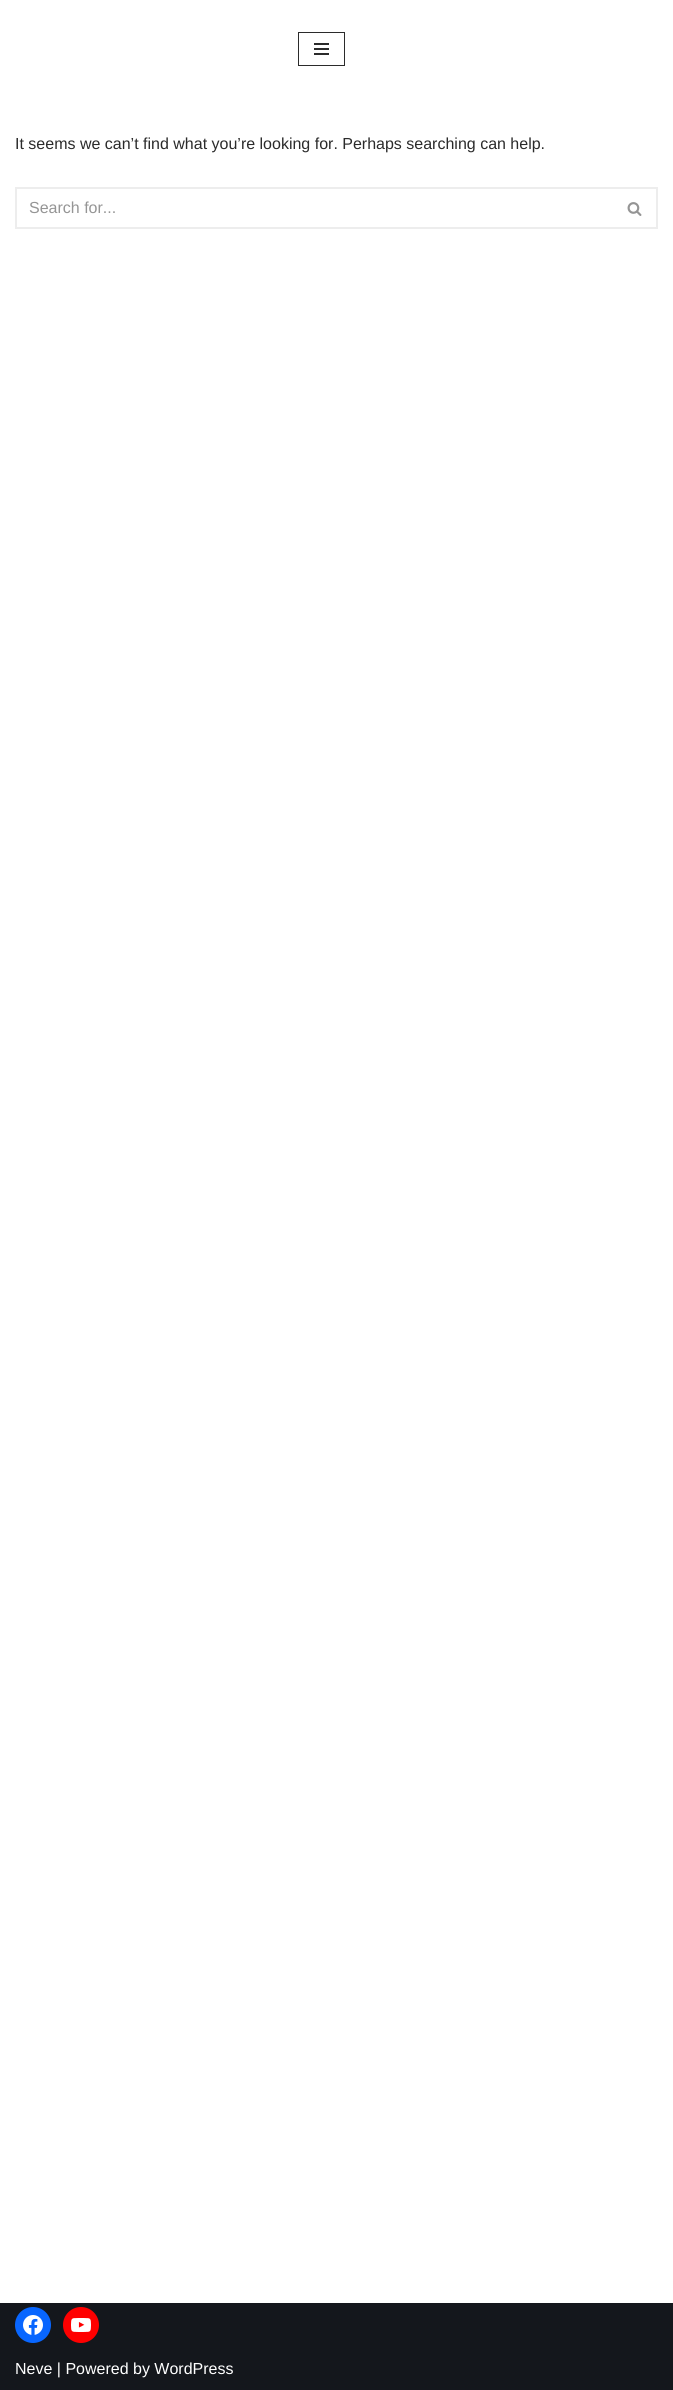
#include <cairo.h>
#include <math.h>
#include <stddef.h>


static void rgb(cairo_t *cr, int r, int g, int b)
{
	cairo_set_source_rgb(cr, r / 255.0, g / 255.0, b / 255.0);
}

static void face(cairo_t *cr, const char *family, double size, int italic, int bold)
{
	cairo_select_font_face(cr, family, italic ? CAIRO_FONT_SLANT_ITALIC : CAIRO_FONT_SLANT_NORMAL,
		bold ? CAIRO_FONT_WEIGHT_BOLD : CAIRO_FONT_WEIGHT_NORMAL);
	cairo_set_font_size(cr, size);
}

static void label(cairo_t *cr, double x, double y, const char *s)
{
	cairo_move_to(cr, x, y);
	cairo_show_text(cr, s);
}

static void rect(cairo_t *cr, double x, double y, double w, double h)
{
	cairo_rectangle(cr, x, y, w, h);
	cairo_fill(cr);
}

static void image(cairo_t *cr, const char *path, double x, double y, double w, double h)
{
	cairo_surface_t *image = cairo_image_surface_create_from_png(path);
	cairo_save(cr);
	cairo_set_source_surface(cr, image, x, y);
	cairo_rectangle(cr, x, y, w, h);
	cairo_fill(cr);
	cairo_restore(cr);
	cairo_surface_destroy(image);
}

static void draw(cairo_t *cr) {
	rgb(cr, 255, 255, 255);
	cairo_paint(cr);
	cairo_rectangle(cr, 298.5, 32.5, 46, 33);
	rgb(cr, 43, 43, 43);
	cairo_set_line_width(cr, 1);
	cairo_stroke(cr);
	rect(cr, 314, 43, 15, 2);
	rect(cr, 314, 48, 15, 2);
	rect(cr, 314, 53, 15, 2);
	face(cr, "Liberation Sans", 16, 0, 0);
	label(cr, 15, 149, "It seems we can’t find what you’re looking for. Perhaps searching can help.");
	rgb(cr, 237, 237, 237);
	rect(cr, 15, 187, 643, 2);
	rect(cr, 15, 227, 598, 2);
	rect(cr, 15, 187, 2, 42);
	rgb(cr, 149, 149, 149);
	label(cr, 29, 213, "Search for...");
	rgb(cr, 237, 237, 237);
	rect(cr, 656, 187, 2, 42);
	rect(cr, 613, 227, 45, 2);
	image(cr, "image0.png", 627, 202, 15, 14);
	rgb(cr, 20, 23, 28);
	rect(cr, 0, 2303, 673, 87);
	rgb(cr, 8, 102, 255);
	cairo_arc(cr, 33, 2325, 18, 0, 2 * M_PI);
	cairo_fill(cr);
	image(cr, "image1.png", 23, 2315, 20, 20);
	rgb(cr, 255, 0, 0);
	cairo_arc(cr, 81, 2325, 18, 0, 2 * M_PI);
	cairo_fill(cr);
	image(cr, "image2.png", 71, 2318, 20, 14);
	rgb(cr, 255, 255, 255);
	label(cr, 15, 2374, "Neve | Powered by WordPress");
}

int main(void) {
	cairo_surface_t *surface = cairo_image_surface_create(CAIRO_FORMAT_RGB24, 673, 2390);
	cairo_t *cr = cairo_create(surface);
	cairo_font_options_t *options = cairo_font_options_create();
	cairo_font_options_set_hint_metrics(options, CAIRO_HINT_METRICS_OFF);
	cairo_font_options_set_hint_style(options, CAIRO_HINT_STYLE_NONE);
	cairo_set_font_options(cr, options);
	cairo_set_miter_limit(cr, 4);
	draw(cr);
	cairo_surface_write_to_png(surface, "render.png");
	cairo_font_options_destroy(options);
	cairo_destroy(cr);
	cairo_surface_destroy(surface);
	return 0;
}
